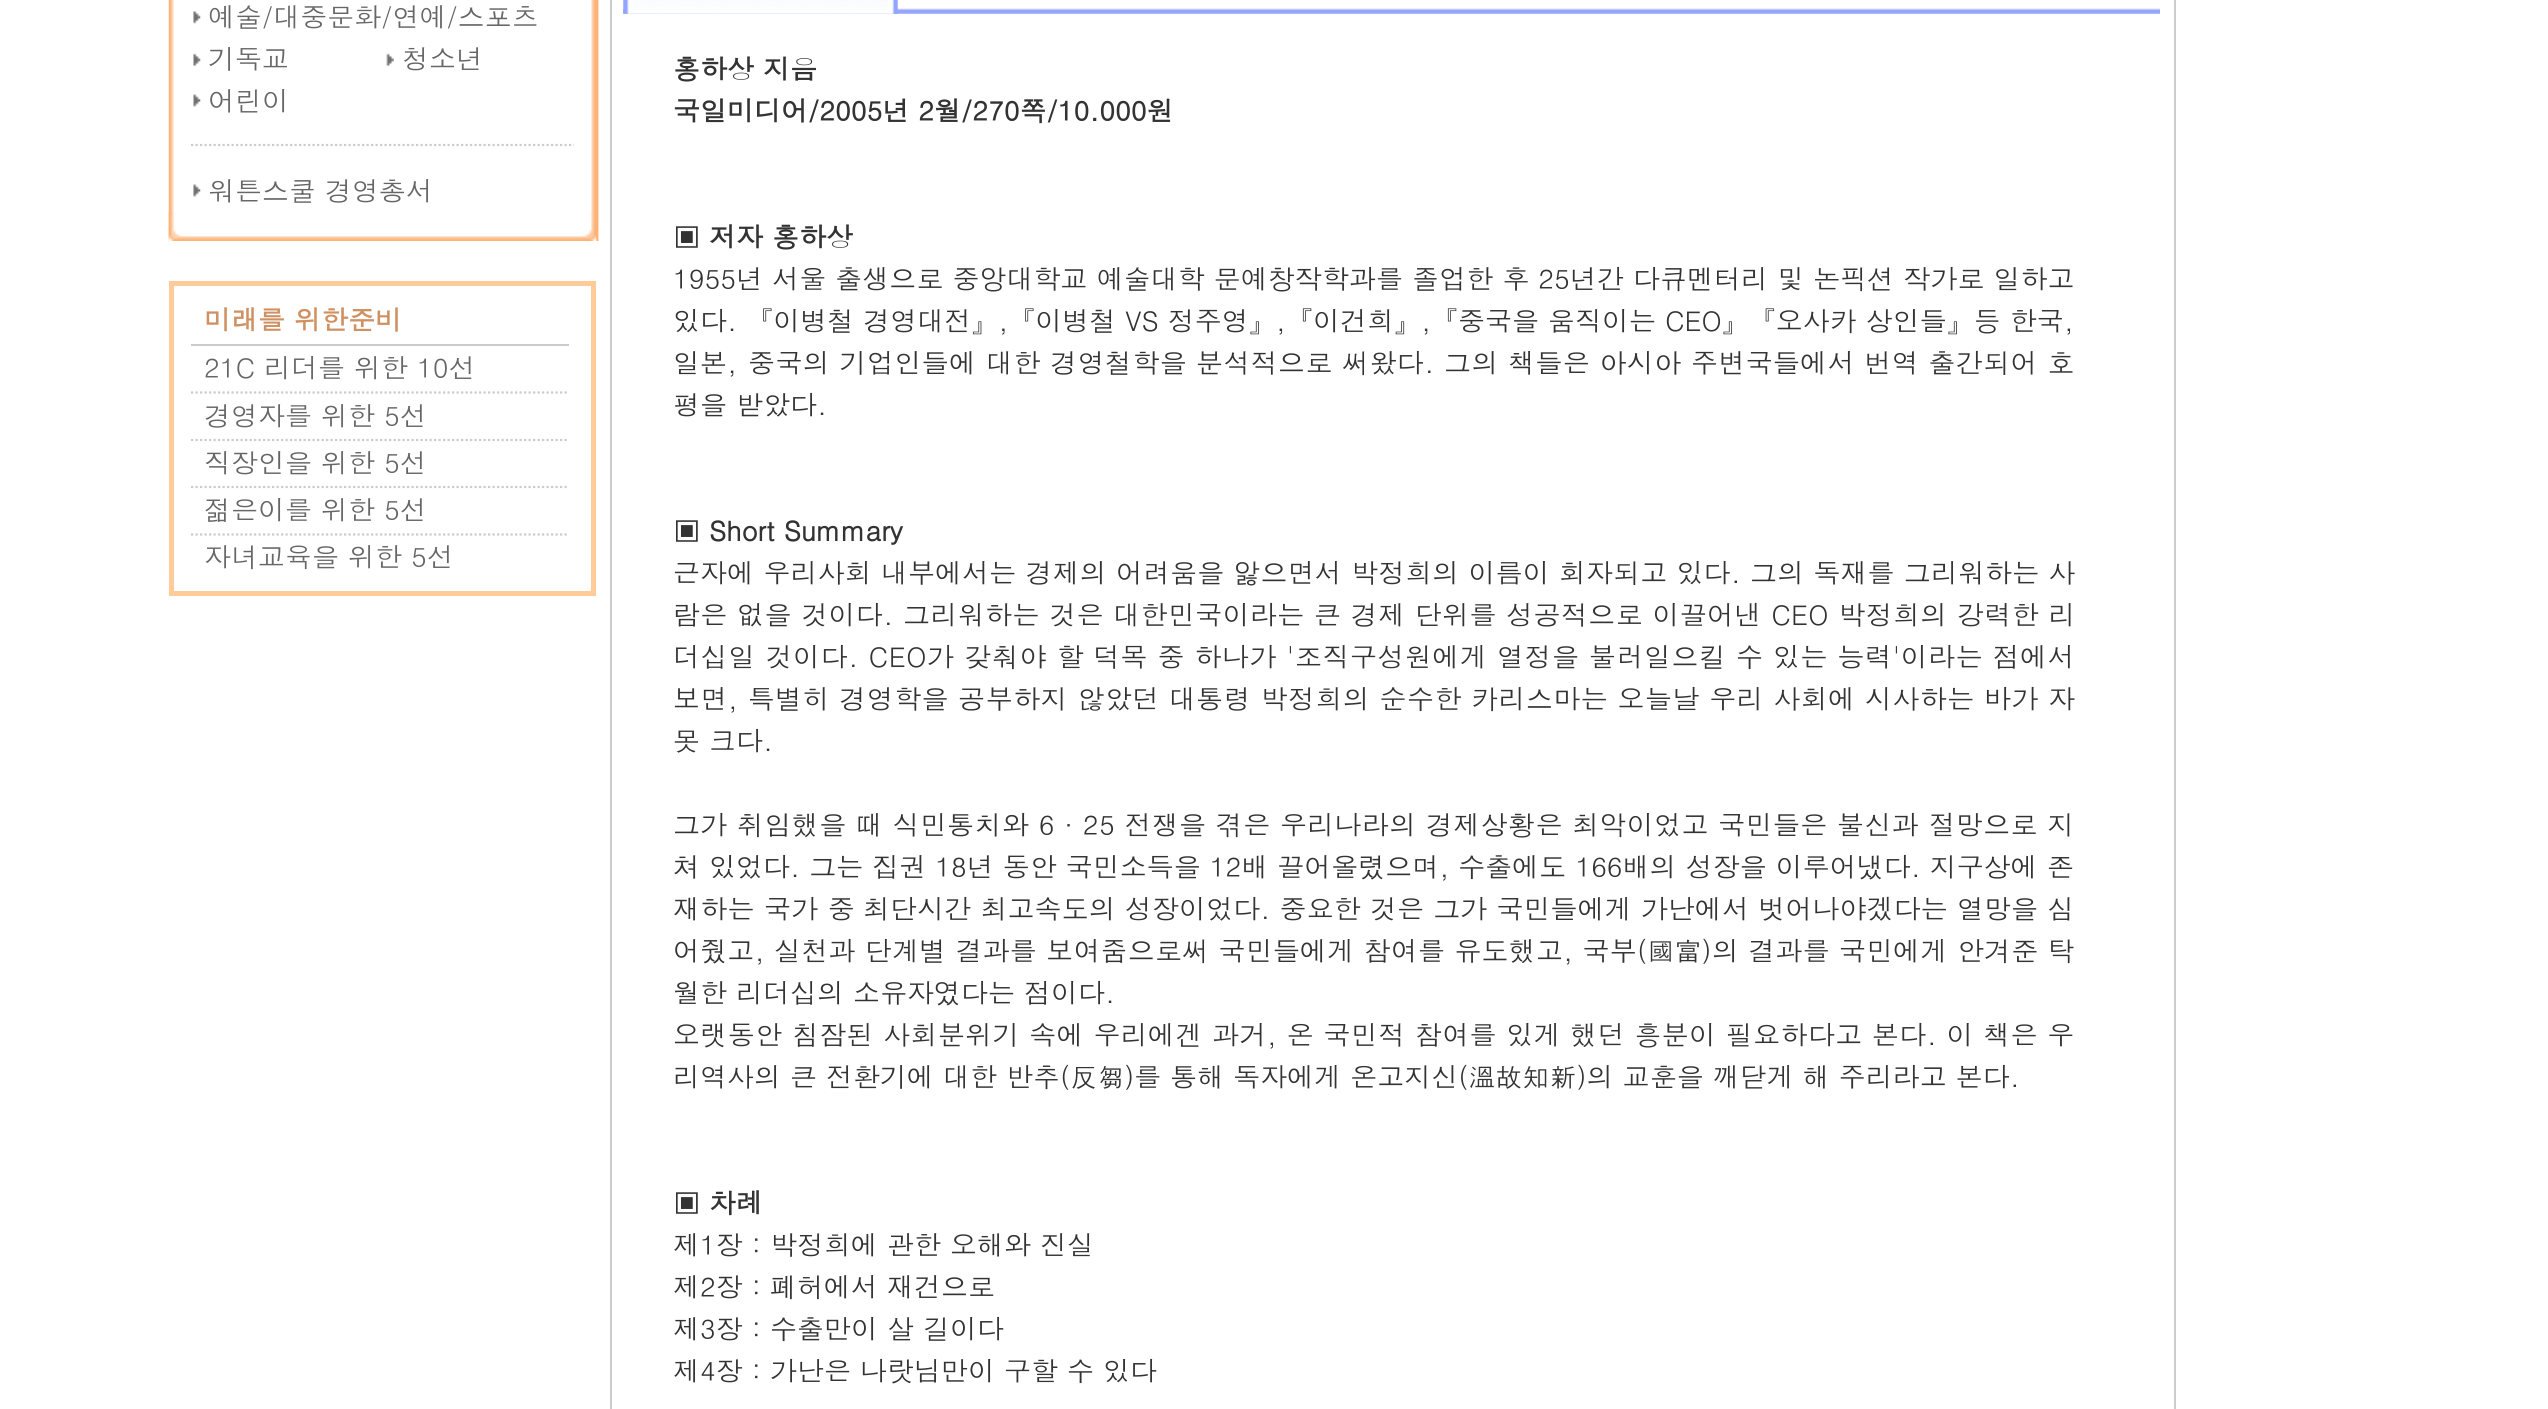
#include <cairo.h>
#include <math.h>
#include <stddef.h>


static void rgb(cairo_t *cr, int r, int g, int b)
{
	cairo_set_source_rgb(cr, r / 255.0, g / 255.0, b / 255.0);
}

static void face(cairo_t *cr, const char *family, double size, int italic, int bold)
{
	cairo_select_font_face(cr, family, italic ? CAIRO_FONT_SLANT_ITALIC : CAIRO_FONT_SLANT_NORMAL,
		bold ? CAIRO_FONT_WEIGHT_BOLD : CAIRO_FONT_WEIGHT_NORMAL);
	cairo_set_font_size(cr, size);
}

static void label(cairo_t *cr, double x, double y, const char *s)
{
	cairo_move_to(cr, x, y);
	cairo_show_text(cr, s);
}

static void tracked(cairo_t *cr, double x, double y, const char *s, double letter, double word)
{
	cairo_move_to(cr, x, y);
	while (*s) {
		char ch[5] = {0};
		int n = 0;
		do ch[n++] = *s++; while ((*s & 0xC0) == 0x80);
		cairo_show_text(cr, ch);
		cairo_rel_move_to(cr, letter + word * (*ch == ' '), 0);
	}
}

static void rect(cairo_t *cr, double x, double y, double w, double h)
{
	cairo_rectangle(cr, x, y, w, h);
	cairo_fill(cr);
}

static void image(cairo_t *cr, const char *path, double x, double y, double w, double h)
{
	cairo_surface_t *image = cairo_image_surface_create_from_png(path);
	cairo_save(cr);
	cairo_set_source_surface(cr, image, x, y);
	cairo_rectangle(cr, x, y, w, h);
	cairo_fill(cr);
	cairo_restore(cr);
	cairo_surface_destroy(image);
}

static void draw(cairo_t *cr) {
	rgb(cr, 255, 255, 255);
	cairo_paint(cr);
	image(cr, "image0.png", 168, 0, 431, 241);
	image(cr, "image1.png", 193, 11, 8, 13);
	face(cr, "Dotum", 27, 0, 0);
	rgb(cr, 102, 102, 102);
	label(cr, 208, 27, "예술/대중문화/연예/스포츠");
	image(cr, "image2.png", 193, 53, 8, 14);
	label(cr, 208, 69, "기독교");
	image(cr, "image3.png", 386, 53, 8, 14);
	label(cr, 402, 69, "청소년");
	image(cr, "image4.png", 193, 94, 8, 13);
	label(cr, 208, 111, "어린이");
	cairo_new_path(cr);
	cairo_move_to(cr, 191, 145);
	cairo_line_to(cr, 574, 145);
	rgb(cr, 204, 204, 204);
	cairo_set_line_width(cr, 2.2);
	cairo_set_dash(cr, (double[]){2.25, 2.25}, 2, 0);
	cairo_stroke(cr);
	image(cr, "image5.png", 193, 184, 8, 13);
	rgb(cr, 102, 102, 102);
	label(cr, 208, 201, "워튼스쿨 경영총서");
	image(cr, "image6.png", 168, 211, 429, 30);
	cairo_rectangle(cr, 171.5, 283.5, 422, 310);
	rgb(cr, 255, 204, 153);
	cairo_set_line_width(cr, 5);
	cairo_set_dash(cr, NULL, 0, 0);
	cairo_stroke(cr);
	rgb(cr, 204, 204, 204);
	rect(cr, 191, 344, 378, 2);
	face(cr, "Dotum", 27, 0, 1);
	rgb(cr, 208, 145, 98);
	label(cr, 204, 330, "미래를 위한준비");
	cairo_new_path(cr);
	cairo_move_to(cr, 191, 392.5);
	cairo_line_to(cr, 569, 392.5);
	rgb(cr, 204, 204, 204);
	cairo_set_line_width(cr, 2.2);
	cairo_set_dash(cr, (double[]){2.25, 2.25}, 2, 0);
	cairo_stroke(cr);
	face(cr, "Dotum", 27, 0, 0);
	rgb(cr, 102, 102, 102);
	label(cr, 204, 378, "21C 리더를 위한 10선");
	cairo_new_path(cr);
	cairo_move_to(cr, 191, 440);
	cairo_line_to(cr, 569, 440);
	rgb(cr, 204, 204, 204);
	cairo_stroke(cr);
	rgb(cr, 102, 102, 102);
	label(cr, 204, 426, "경영자를 위한 5선");
	cairo_new_path(cr);
	cairo_move_to(cr, 191, 487);
	cairo_line_to(cr, 569, 487);
	rgb(cr, 204, 204, 204);
	cairo_stroke(cr);
	rgb(cr, 102, 102, 102);
	label(cr, 204, 473, "직장인을 위한 5선");
	cairo_new_path(cr);
	cairo_move_to(cr, 191, 534.5);
	cairo_line_to(cr, 569, 534.5);
	rgb(cr, 204, 204, 204);
	cairo_stroke(cr);
	rgb(cr, 102, 102, 102);
	label(cr, 204, 520, "젊은이를 위한 5선");
	label(cr, 204, 567, "자녀교육을 위한 5선");
	rgb(cr, 204, 204, 204);
	rect(cr, 2174, 0, 2, 1409);
	rect(cr, 610, 0, 2, 1409);
	image(cr, "image7.png", 623, 8, 1537, 6);
	image(cr, "image8.png", 623, 0, 275, 14);
	face(cr, "Dotum", 27, 0, 1);
	rgb(cr, 51, 51, 51);
	label(cr, 673, 79, "홍하상 지음");
	label(cr, 673, 121, "국일미디어/2005년 2월/270쪽/10.000원");
	label(cr, 673, 247, "▣ 저자 홍하상");
	face(cr, "Dotum", 27, 0, 0);
	tracked(cr, 673, 289, "1955년 서울 출생으로 중앙대학교 예술대학 문예창작학과를 졸업한 후 25년간 다큐멘터리 및 논픽션 작가로 일하고", 0.03, 0);
	label(cr, 673, 331, "있다. 『이병철 경영대전』,『이병철 VS 정주영』,『이건희』,『중국을");
	label(cr, 1548, 331, "움직이는 CEO』『오사카 상인들』등 한국,");
	label(cr, 673, 373, "일본,");
	tracked(cr, 748, 373, "중국의 기업인들에 대한 경영철학을", 0.4, 0);
	tracked(cr, 1196, 373, "분석적으로 써왔다. 그의 책들은 아시아 주변국들에서 번역 출간되어 호", 0.35, 0);
	label(cr, 673, 415, "평을 받았다.");
	face(cr, "Dotum", 27, 0, 1);
	label(cr, 673, 541, "▣ Short Summary");
	face(cr, "Dotum", 27, 0, 0);
	tracked(cr, 673, 583, "근자에 우리사회 내부에서는 경제의 어려움을 앓으면서 박정희의 이름이 회자되고 있다. 그의 독재를 그리워하는 사", 0.1, 0);
	tracked(cr, 673, 625, "람은 없을 것이다. 그리워하는 것은 대한민국이라는 큰 경제 단위를 성공적으로 이끌어낸 CEO 박정희의 강력한 리", 0.35, 0);
	tracked(cr, 673, 667, "더십일 것이다. CEO가 갖춰야 할", 0.6, 0);
	tracked(cr, 1093, 667, "덕목 중 하나가 '조직구성원에게 열정을 불러일으킬 수 있는 능력'이라는 점에서", 0.5, 0);
	tracked(cr, 673, 709, "보면, 특별히 경영학을 공부하지 않았던 대통령 박정희의 순수한 카리스마는 오늘날 우리 사회에 시사하는 바가 자", 0.4, 0);
	label(cr, 673, 751, "못 크다.");
	tracked(cr, 673, 835, "그가 취임했을 때 식민통치와 6 · 25 전쟁을 겪은 우리나라의 경제상황은 최악이었고 국민들은 불신과 절망으로 지", 0.35, 0);
	label(cr, 673, 877, "쳐 있었다. 그는 집권 18년 동안 국민소득을 12배 끌어올렸으며, 수출에도 166배의 성장을 이루어냈다. 지구상에 존");
	tracked(cr, 673, 919, "재하는 국가 중", 0.25, 0);
	tracked(cr, 863, 919, "최단시간 최고속도의 성장이었다. 중요한 것은 그가 국민들에게 가난에서 벗어나야겠다는 열망을 심", 0.08, 0);
	tracked(cr, 673, 961, "어줬고, 실천과 단계별 결과를 보여줌으로써 국민들에게 참여를 유도했고, 국부(國富)의 결과를 국민에게 안겨준 탁", 0.18, 0);
	label(cr, 673, 1003, "월한 리더십의 소유자였다는 점이다.");
	tracked(cr, 673, 1045, "오랫동안 침잠된 사회분위기 속에 우리에겐 과거, 온 국민적 참여를 있게 했던 흥분이 필요하다고 본다. 이 책은 우", 0.35, 0);
	label(cr, 673, 1087, "리역사의 큰 전환기에 대한 반추(反芻)를 통해 독자에게 온고지신(溫故知新)의 교훈을 깨닫게 해 주리라고 본다.");
	face(cr, "Dotum", 27, 0, 1);
	label(cr, 673, 1213, "▣ 차례");
	face(cr, "Dotum", 27, 0, 0);
	label(cr, 673, 1255, "제1장 : 박정희에 관한 오해와 진실");
	label(cr, 673, 1297, "제2장 : 폐허에서 재건으로");
	label(cr, 673, 1339, "제3장 : 수출만이 살 길이다");
	label(cr, 673, 1381, "제4장 : 가난은 나랏님만이 구할 수 있다");
}

int main(void) {
	cairo_surface_t *surface = cairo_image_surface_create(CAIRO_FORMAT_RGB24, 2548, 1409);
	cairo_t *cr = cairo_create(surface);
	cairo_font_options_t *options = cairo_font_options_create();
	cairo_font_options_set_hint_metrics(options, CAIRO_HINT_METRICS_OFF);
	cairo_font_options_set_hint_style(options, CAIRO_HINT_STYLE_NONE);
	cairo_set_font_options(cr, options);
	cairo_set_miter_limit(cr, 4);
	draw(cr);
	cairo_surface_write_to_png(surface, "render.png");
	cairo_font_options_destroy(options);
	cairo_destroy(cr);
	cairo_surface_destroy(surface);
	return 0;
}
